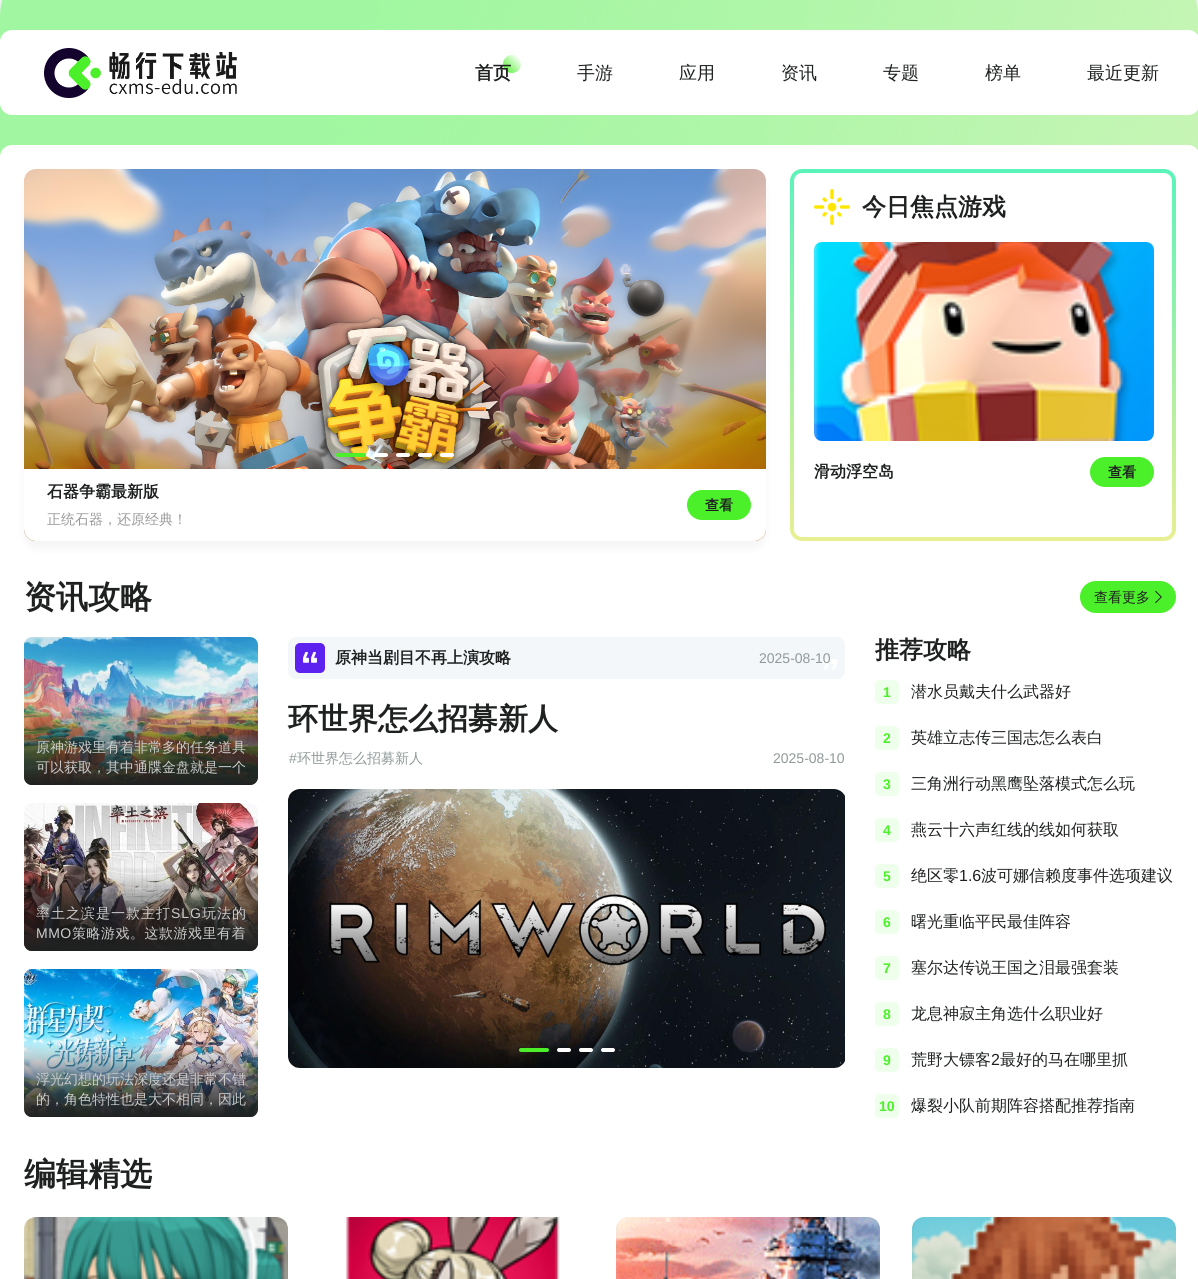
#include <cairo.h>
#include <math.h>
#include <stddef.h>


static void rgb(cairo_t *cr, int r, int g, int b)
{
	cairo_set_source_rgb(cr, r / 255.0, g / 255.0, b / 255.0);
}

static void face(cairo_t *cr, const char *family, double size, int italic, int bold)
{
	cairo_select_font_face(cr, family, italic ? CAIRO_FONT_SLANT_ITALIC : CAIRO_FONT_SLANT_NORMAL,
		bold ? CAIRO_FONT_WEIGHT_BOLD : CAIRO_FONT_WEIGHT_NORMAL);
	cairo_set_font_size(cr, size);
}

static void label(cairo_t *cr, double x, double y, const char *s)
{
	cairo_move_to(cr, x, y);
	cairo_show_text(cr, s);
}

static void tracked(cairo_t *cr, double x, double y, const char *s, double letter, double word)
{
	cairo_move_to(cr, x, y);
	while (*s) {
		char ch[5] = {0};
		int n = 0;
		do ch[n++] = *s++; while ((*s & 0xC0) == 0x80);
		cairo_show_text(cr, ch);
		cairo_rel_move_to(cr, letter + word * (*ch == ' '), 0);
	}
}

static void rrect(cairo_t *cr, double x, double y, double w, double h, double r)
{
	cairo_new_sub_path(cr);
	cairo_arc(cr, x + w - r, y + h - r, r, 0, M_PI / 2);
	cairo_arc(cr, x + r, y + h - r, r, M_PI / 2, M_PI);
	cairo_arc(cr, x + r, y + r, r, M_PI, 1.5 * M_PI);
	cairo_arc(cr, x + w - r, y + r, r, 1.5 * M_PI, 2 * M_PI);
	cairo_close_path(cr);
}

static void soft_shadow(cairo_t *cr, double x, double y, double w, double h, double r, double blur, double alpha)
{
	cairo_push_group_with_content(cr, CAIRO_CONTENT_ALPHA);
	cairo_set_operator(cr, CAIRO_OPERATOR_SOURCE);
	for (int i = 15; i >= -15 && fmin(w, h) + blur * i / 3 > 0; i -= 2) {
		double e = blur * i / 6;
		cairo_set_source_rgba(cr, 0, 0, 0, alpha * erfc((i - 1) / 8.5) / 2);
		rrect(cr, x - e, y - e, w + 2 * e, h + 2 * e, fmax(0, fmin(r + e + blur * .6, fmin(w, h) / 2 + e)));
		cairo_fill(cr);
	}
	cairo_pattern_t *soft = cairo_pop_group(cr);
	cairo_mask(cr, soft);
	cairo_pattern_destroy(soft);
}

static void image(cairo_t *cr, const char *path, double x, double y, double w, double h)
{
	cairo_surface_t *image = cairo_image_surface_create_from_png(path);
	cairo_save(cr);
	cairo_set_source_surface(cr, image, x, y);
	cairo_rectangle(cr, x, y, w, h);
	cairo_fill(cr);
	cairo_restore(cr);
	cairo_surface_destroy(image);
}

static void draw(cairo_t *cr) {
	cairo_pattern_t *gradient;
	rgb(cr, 240, 242, 242);
	cairo_paint(cr);
	image(cr, "image0.png", 0, 0, 1198, 157);
	rgb(cr, 255, 255, 255);
	rrect(cr, 0, 30, 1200, 85, 12);
	cairo_fill(cr);
	image(cr, "image1.png", 44, 48, 193, 50);
	gradient = cairo_pattern_create_linear(503, 73, 521, 55);
	cairo_pattern_add_color_stop_rgba(gradient, 0, 0.298, 0.941, 0.165, 1);
	cairo_pattern_add_color_stop_rgba(gradient, 0.9, 1, 1, 1, 1);
	cairo_pattern_add_color_stop_rgba(gradient, 1, 1, 1, 1, 1);
	cairo_set_source(cr, gradient);
	cairo_pattern_destroy(gradient);
	cairo_arc(cr, 512, 64, 9, 0, 2 * M_PI);
	cairo_fill(cr);
	face(cr, "WenQuanYi Zen Hei", 18, 0, 1);
	rgb(cr, 31, 33, 33);
	label(cr, 475, 79, "首页");
	face(cr, "WenQuanYi Zen Hei Medium", 18, 0, 0);
	label(cr, 577, 79, "手游");
	label(cr, 679, 79, "应用");
	label(cr, 781, 79, "资讯");
	label(cr, 883, 79, "专题");
	label(cr, 985, 79, "榜单");
	label(cr, 1087, 79, "最近更新");
	rgb(cr, 255, 255, 255);
	rrect(cr, 0, 145, 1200, 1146, 12);
	cairo_fill(cr);
	gradient = cairo_pattern_create_linear(983, 541, 983, 169);
	cairo_pattern_add_color_stop_rgba(gradient, 0, 0.91, 0.937, 0.573, 1);
	cairo_pattern_add_color_stop_rgba(gradient, 1, 0.357, 0.953, 0.729, 1);
	cairo_set_source(cr, gradient);
	cairo_pattern_destroy(gradient);
	rrect(cr, 790, 169, 386, 372, 12);
	cairo_fill(cr);
	rgb(cr, 255, 255, 255);
	rrect(cr, 794, 173, 378, 364, 8);
	cairo_fill(cr);
	image(cr, "image2.png", 814, 189, 36, 36);
	face(cr, "WenQuanYi Zen Hei", 24, 0, 1);
	rgb(cr, 31, 33, 33);
	label(cr, 862, 215, "今日焦点游戏");
	image(cr, "image3.png", 814, 242, 340, 199);
	face(cr, "WenQuanYi Zen Hei", 16, 0, 1);
	label(cr, 814, 477, "滑动浮空岛");
	rgb(cr, 76, 240, 42);
	rrect(cr, 1090, 457, 64, 30, 15);
	cairo_fill(cr);
	face(cr, "WenQuanYi Zen Hei", 14, 0, 1);
	rgb(cr, 31, 33, 33);
	label(cr, 1108, 477, "查看");
	rgb(cr, 0, 0, 0);
	soft_shadow(cr, 24, 177, 742, 372, 12, 4, 0.04);
	image(cr, "image4.png", 24, 169, 742, 372);
	rgb(cr, 76, 240, 42);
	rrect(cr, 336, 453, 30, 4, 2);
	cairo_fill(cr);
	rgb(cr, 255, 255, 255);
	rrect(cr, 374, 453, 14, 4, 2);
	cairo_fill(cr);
	rrect(cr, 396, 453, 14, 4, 2);
	cairo_fill(cr);
	rrect(cr, 418, 453, 14, 4, 2);
	cairo_fill(cr);
	rrect(cr, 440, 453, 14, 4, 2);
	cairo_fill(cr);
	cairo_new_path(cr);
	cairo_move_to(cr, 24, 469);
	cairo_line_to(cr, 766, 469);
	cairo_line_to(cr, 766, 529);
	cairo_curve_to(cr, 766, 535.5, 760.5, 541, 754, 541);
	cairo_line_to(cr, 36, 541);
	cairo_curve_to(cr, 29.5, 541, 24, 535.5, 24, 529);
	cairo_close_path(cr);
	cairo_fill(cr);
	face(cr, "WenQuanYi Zen Hei", 16, 0, 1);
	rgb(cr, 31, 33, 33);
	label(cr, 47, 497, "石器争霸最新版");
	face(cr, "WenQuanYi Zen Hei Medium", 14, 0, 0);
	rgb(cr, 153, 153, 153);
	label(cr, 47, 524, "正统石器，还原经典！");
	rgb(cr, 76, 240, 42);
	rrect(cr, 687, 490, 64, 30, 15);
	cairo_fill(cr);
	face(cr, "WenQuanYi Zen Hei", 14, 0, 1);
	rgb(cr, 31, 33, 33);
	label(cr, 705, 510, "查看");
	face(cr, "WenQuanYi Zen Hei", 32, 0, 1);
	label(cr, 24, 608, "资讯攻略");
	rgb(cr, 76, 240, 42);
	rrect(cr, 1080, 581, 96, 32, 16);
	cairo_fill(cr);
	face(cr, "WenQuanYi Zen Hei Medium", 14, 0, 0);
	rgb(cr, 31, 33, 33);
	label(cr, 1094, 602, "查看更多");
	image(cr, "image5.png", 1155, 590, 7, 14);
	rgb(cr, 244, 247, 249);
	rrect(cr, 288, 637, 557, 42, 8);
	cairo_fill(cr);
	rgb(cr, 94, 34, 240);
	rrect(cr, 295, 643, 30, 30, 5);
	cairo_fill(cr);
	image(cr, "image6.png", 303, 651, 14, 12);
	face(cr, "WenQuanYi Zen Hei", 16, 0, 1);
	rgb(cr, 31, 33, 33);
	label(cr, 335, 663, "原神当剧目不再上演攻略");
	image(cr, "image7.png", 823, 659, 14, 11);
	face(cr, "Liberation Sans", 14, 0, 0);
	rgb(cr, 144, 153, 153);
	label(cr, 759, 663, "2025-08-10");
	face(cr, "WenQuanYi Zen Hei", 30, 0, 1);
	rgb(cr, 31, 33, 33);
	label(cr, 288, 729, "环世界怎么招募新人");
	face(cr, "Liberation Sans", 14, 0, 0);
	rgb(cr, 144, 153, 153);
	label(cr, 289, 763, "#");
	face(cr, "WenQuanYi Zen Hei Medium", 14, 0, 0);
	label(cr, 297, 763, "环世界怎么招募新人");
	face(cr, "Liberation Sans", 14, 0, 0);
	label(cr, 773, 763, "2025-08-10");
	image(cr, "image8.png", 288, 789, 557, 279);
	rgb(cr, 76, 240, 42);
	rrect(cr, 519, 1048, 30, 4, 2);
	cairo_fill(cr);
	rgb(cr, 255, 255, 255);
	rrect(cr, 557, 1048, 14, 4, 2);
	cairo_fill(cr);
	rrect(cr, 579, 1048, 14, 4, 2);
	cairo_fill(cr);
	rrect(cr, 601, 1048, 14, 4, 2);
	cairo_fill(cr);
	face(cr, "WenQuanYi Zen Hei", 24, 0, 1);
	rgb(cr, 31, 33, 33);
	label(cr, 875, 658, "推荐攻略");
	rgb(cr, 238, 255, 235);
	rrect(cr, 875, 680, 24, 24, 5);
	cairo_fill(cr);
	face(cr, "Liberation Sans", 14, 0, 1);
	rgb(cr, 76, 240, 42);
	label(cr, 883, 697, "1");
	face(cr, "WenQuanYi Zen Hei Medium", 16, 0, 0);
	rgb(cr, 31, 33, 33);
	label(cr, 911, 697, "潜水员戴夫什么武器好");
	rgb(cr, 238, 255, 235);
	rrect(cr, 875, 726, 24, 24, 5);
	cairo_fill(cr);
	face(cr, "Liberation Sans", 14, 0, 1);
	rgb(cr, 76, 240, 42);
	label(cr, 883, 743, "2");
	face(cr, "WenQuanYi Zen Hei Medium", 16, 0, 0);
	rgb(cr, 31, 33, 33);
	label(cr, 911, 743, "英雄立志传三国志怎么表白");
	rgb(cr, 238, 255, 235);
	rrect(cr, 875, 772, 24, 24, 5);
	cairo_fill(cr);
	face(cr, "Liberation Sans", 14, 0, 1);
	rgb(cr, 76, 240, 42);
	label(cr, 883, 789, "3");
	face(cr, "WenQuanYi Zen Hei Medium", 16, 0, 0);
	rgb(cr, 31, 33, 33);
	label(cr, 911, 789, "三角洲行动黑鹰坠落模式怎么玩");
	rgb(cr, 238, 255, 235);
	rrect(cr, 875, 818, 24, 24, 5);
	cairo_fill(cr);
	face(cr, "Liberation Sans", 14, 0, 1);
	rgb(cr, 76, 240, 42);
	label(cr, 883, 835, "4");
	face(cr, "WenQuanYi Zen Hei Medium", 16, 0, 0);
	rgb(cr, 31, 33, 33);
	label(cr, 911, 835, "燕云十六声红线的线如何获取");
	rgb(cr, 238, 255, 235);
	rrect(cr, 875, 864, 24, 24, 5);
	cairo_fill(cr);
	face(cr, "Liberation Sans", 14, 0, 1);
	rgb(cr, 76, 240, 42);
	label(cr, 883, 881, "5");
	face(cr, "WenQuanYi Zen Hei Medium", 16, 0, 0);
	rgb(cr, 31, 33, 33);
	label(cr, 911, 881, "绝区零");
	face(cr, "Liberation Sans", 16, 0, 0);
	label(cr, 959, 881, "1.6");
	face(cr, "WenQuanYi Zen Hei Medium", 16, 0, 0);
	label(cr, 981, 881, "波可娜信赖度事件选项建议");
	rgb(cr, 238, 255, 235);
	rrect(cr, 875, 910, 24, 24, 5);
	cairo_fill(cr);
	face(cr, "Liberation Sans", 14, 0, 1);
	rgb(cr, 76, 240, 42);
	label(cr, 883, 927, "6");
	face(cr, "WenQuanYi Zen Hei Medium", 16, 0, 0);
	rgb(cr, 31, 33, 33);
	label(cr, 911, 927, "曙光重临平民最佳阵容");
	rgb(cr, 238, 255, 235);
	rrect(cr, 875, 956, 24, 24, 5);
	cairo_fill(cr);
	face(cr, "Liberation Sans", 14, 0, 1);
	rgb(cr, 76, 240, 42);
	label(cr, 883, 973, "7");
	face(cr, "WenQuanYi Zen Hei Medium", 16, 0, 0);
	rgb(cr, 31, 33, 33);
	label(cr, 911, 973, "塞尔达传说王国之泪最强套装");
	rgb(cr, 238, 255, 235);
	rrect(cr, 875, 1002, 24, 24, 5);
	cairo_fill(cr);
	face(cr, "Liberation Sans", 14, 0, 1);
	rgb(cr, 76, 240, 42);
	label(cr, 883, 1019, "8");
	face(cr, "WenQuanYi Zen Hei Medium", 16, 0, 0);
	rgb(cr, 31, 33, 33);
	label(cr, 911, 1019, "龙息神寂主角选什么职业好");
	rgb(cr, 238, 255, 235);
	rrect(cr, 875, 1048, 24, 24, 5);
	cairo_fill(cr);
	face(cr, "Liberation Sans", 14, 0, 1);
	rgb(cr, 76, 240, 42);
	label(cr, 883, 1065, "9");
	face(cr, "WenQuanYi Zen Hei Medium", 16, 0, 0);
	rgb(cr, 31, 33, 33);
	label(cr, 911, 1065, "荒野大镖客");
	face(cr, "Liberation Sans", 16, 0, 0);
	label(cr, 991, 1065, "2");
	face(cr, "WenQuanYi Zen Hei Medium", 16, 0, 0);
	label(cr, 1000, 1065, "最好的马在哪里抓");
	rgb(cr, 238, 255, 235);
	rrect(cr, 875, 1094, 24, 24, 5);
	cairo_fill(cr);
	face(cr, "Liberation Sans", 14, 0, 1);
	rgb(cr, 76, 240, 42);
	label(cr, 879, 1111, "10");
	face(cr, "WenQuanYi Zen Hei Medium", 16, 0, 0);
	rgb(cr, 31, 33, 33);
	label(cr, 911, 1111, "爆裂小队前期阵容搭配推荐指南");
	image(cr, "image9.png", 24, 637, 234, 148);
	gradient = cairo_pattern_create_linear(141, 785, 141, 711);
	cairo_pattern_add_color_stop_rgba(gradient, 0, 0.122, 0.129, 0.129, 1);
	cairo_pattern_add_color_stop_rgba(gradient, 1, 0.122, 0.129, 0.129, 0);
	cairo_set_source(cr, gradient);
	cairo_pattern_destroy(gradient);
	cairo_new_path(cr);
	cairo_move_to(cr, 24, 711);
	cairo_line_to(cr, 258, 711);
	cairo_line_to(cr, 258, 777);
	cairo_curve_to(cr, 258, 781.5, 254.5, 785, 250, 785);
	cairo_line_to(cr, 32, 785);
	cairo_curve_to(cr, 27.5, 785, 24, 781.5, 24, 777);
	cairo_close_path(cr);
	cairo_fill(cr);
	face(cr, "WenQuanYi Zen Hei Medium", 14, 0, 0);
	rgb(cr, 204, 204, 204);
	label(cr, 36, 752, "原神游戏里有着非常多的任务道具");
	label(cr, 36, 772, "可以获取，其中通牒金盘就是一个");
	image(cr, "image10.png", 24, 803, 234, 148);
	gradient = cairo_pattern_create_linear(141, 951, 141, 877);
	cairo_pattern_add_color_stop_rgba(gradient, 0, 0.122, 0.129, 0.129, 1);
	cairo_pattern_add_color_stop_rgba(gradient, 1, 0.122, 0.129, 0.129, 0);
	cairo_set_source(cr, gradient);
	cairo_pattern_destroy(gradient);
	cairo_new_path(cr);
	cairo_move_to(cr, 24, 877);
	cairo_line_to(cr, 258, 877);
	cairo_line_to(cr, 258, 943);
	cairo_curve_to(cr, 258, 947.5, 254.5, 951, 250, 951);
	cairo_line_to(cr, 32, 951);
	cairo_curve_to(cr, 27.5, 951, 24, 947.5, 24, 943);
	cairo_close_path(cr);
	cairo_fill(cr);
	rgb(cr, 204, 204, 204);
	tracked(cr, 36, 918, "率土之滨是一款主打", 1, 0);
	face(cr, "Liberation Sans", 14, 0, 0);
	tracked(cr, 171, 918, "SLG", 1, 0);
	face(cr, "WenQuanYi Zen Hei Medium", 14, 0, 0);
	tracked(cr, 202, 918, "玩法的", 1, 0);
	face(cr, "Liberation Sans", 14, 0, 0);
	tracked(cr, 36, 938, "MMO", 0.5, 0);
	face(cr, "WenQuanYi Zen Hei Medium", 14, 0, 0);
	tracked(cr, 72, 938, "策略游戏。这款游戏里有着", 0.5, 0);
	image(cr, "image11.png", 24, 969, 234, 148);
	gradient = cairo_pattern_create_linear(141, 1117, 141, 1043);
	cairo_pattern_add_color_stop_rgba(gradient, 0, 0.122, 0.129, 0.129, 1);
	cairo_pattern_add_color_stop_rgba(gradient, 1, 0.122, 0.129, 0.129, 0);
	cairo_set_source(cr, gradient);
	cairo_pattern_destroy(gradient);
	cairo_new_path(cr);
	cairo_move_to(cr, 24, 1043);
	cairo_line_to(cr, 258, 1043);
	cairo_line_to(cr, 258, 1109);
	cairo_curve_to(cr, 258, 1113.5, 254.5, 1117, 250, 1117);
	cairo_line_to(cr, 32, 1117);
	cairo_curve_to(cr, 27.5, 1117, 24, 1113.5, 24, 1109);
	cairo_close_path(cr);
	cairo_fill(cr);
	rgb(cr, 204, 204, 204);
	label(cr, 36, 1084, "浮光幻想的玩法深度还是非常不错");
	label(cr, 36, 1104, "的，角色特性也是大不相同，因此");
	face(cr, "WenQuanYi Zen Hei", 32, 0, 1);
	rgb(cr, 31, 33, 33);
	label(cr, 24, 1185, "编辑精选");
	image(cr, "image12.png", 24, 1217, 264, 62);
	image(cr, "image13.png", 345, 1217, 215, 62);
	image(cr, "image14.png", 616, 1217, 264, 62);
	image(cr, "image15.png", 912, 1217, 264, 62);
}

int main(void) {
	cairo_surface_t *surface = cairo_image_surface_create(CAIRO_FORMAT_RGB24, 1198, 1279);
	cairo_t *cr = cairo_create(surface);
	cairo_font_options_t *options = cairo_font_options_create();
	cairo_font_options_set_hint_metrics(options, CAIRO_HINT_METRICS_OFF);
	cairo_font_options_set_hint_style(options, CAIRO_HINT_STYLE_NONE);
	cairo_set_font_options(cr, options);
	cairo_set_miter_limit(cr, 4);
	draw(cr);
	cairo_surface_write_to_png(surface, "render.png");
	cairo_font_options_destroy(options);
	cairo_destroy(cr);
	cairo_surface_destroy(surface);
	return 0;
}
